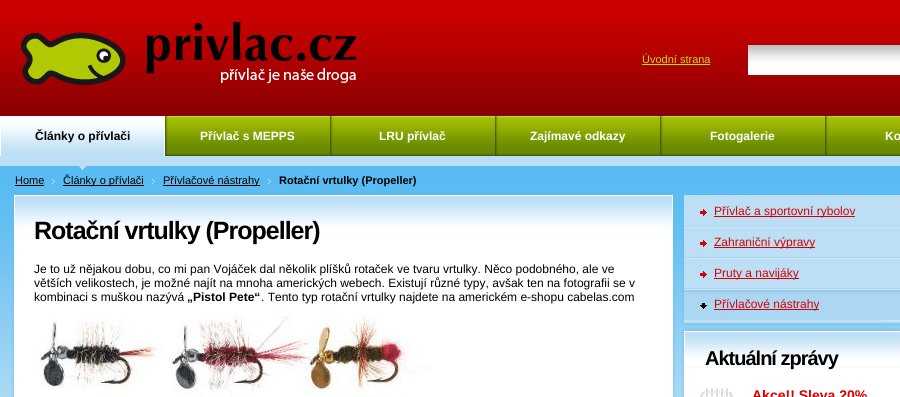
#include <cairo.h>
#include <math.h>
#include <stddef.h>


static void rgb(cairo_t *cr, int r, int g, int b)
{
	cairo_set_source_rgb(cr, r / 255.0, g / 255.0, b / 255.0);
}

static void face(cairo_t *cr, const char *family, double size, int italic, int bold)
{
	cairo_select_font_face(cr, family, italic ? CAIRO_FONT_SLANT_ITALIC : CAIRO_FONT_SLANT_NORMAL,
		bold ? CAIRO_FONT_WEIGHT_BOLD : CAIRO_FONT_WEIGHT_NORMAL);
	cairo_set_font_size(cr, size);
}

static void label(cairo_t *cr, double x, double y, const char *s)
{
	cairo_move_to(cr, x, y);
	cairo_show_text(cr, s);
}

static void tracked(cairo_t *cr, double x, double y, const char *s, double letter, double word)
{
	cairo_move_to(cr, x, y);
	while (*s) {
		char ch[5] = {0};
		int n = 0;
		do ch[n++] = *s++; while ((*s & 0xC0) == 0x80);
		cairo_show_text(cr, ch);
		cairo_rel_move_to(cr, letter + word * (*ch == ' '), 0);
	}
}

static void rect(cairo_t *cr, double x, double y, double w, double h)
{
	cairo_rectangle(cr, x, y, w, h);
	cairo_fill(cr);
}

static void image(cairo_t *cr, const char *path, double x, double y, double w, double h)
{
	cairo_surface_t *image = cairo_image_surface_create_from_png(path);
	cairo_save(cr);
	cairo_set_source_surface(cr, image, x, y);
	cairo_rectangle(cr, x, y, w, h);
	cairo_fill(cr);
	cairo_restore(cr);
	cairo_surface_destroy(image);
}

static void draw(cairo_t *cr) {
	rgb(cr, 255, 255, 255);
	cairo_paint(cr);
	image(cr, "image0.png", 0, 0, 900, 397);
	image(cr, "image1.png", 21, 22, 335, 63);
	face(cr, "Liberation Sans", 11, 0, 0);
	rgb(cr, 194, 222, 16);
	label(cr, 642, 63, "Úvodní strana");
	rect(cr, 642, 64, 68, 1);
	image(cr, "image2.png", 748, 45, 152, 30);
	image(cr, "image3.png", 79, 166, 7, 4);
	image(cr, "image4.png", 0, 116, 165, 40);
	face(cr, "Liberation Sans", 12, 0, 1);
	rgb(cr, 0, 0, 0);
	label(cr, 35, 140, "Články o přívlači");
	image(cr, "image5.png", 165, 116, 165, 40);
	rgb(cr, 255, 255, 255);
	label(cr, 200, 140, "Přívlač s MEPPS");
	image(cr, "image5.png", 330, 116, 165, 40);
	label(cr, 379, 140, "LRU přívlač");
	image(cr, "image5.png", 495, 116, 165, 40);
	label(cr, 530, 140, "Zajímavé odkazy");
	image(cr, "image5.png", 660, 116, 165, 40);
	label(cr, 710, 140, "Fotogalerie");
	image(cr, "image6.png", 825, 116, 75, 40);
	label(cr, 885, 140, "Ko");
	face(cr, "Liberation Sans", 11, 0, 0);
	rgb(cr, 0, 0, 0);
	label(cr, 15, 184, "Home");
	rect(cr, 15, 185, 29, 1);
	image(cr, "image7.png", 52, 179, 3, 5);
	rect(cr, 63, 185, 81, 1);
	label(cr, 63, 184, "Články o přívlači");
	image(cr, "image7.png", 152, 179, 3, 5);
	rect(cr, 163, 185, 97, 1);
	label(cr, 163, 184, "Přívlačové nástrahy");
	image(cr, "image7.png", 268, 179, 3, 5);
	face(cr, "Liberation Sans", 11, 0, 1);
	label(cr, 279, 184, "Rotační vrtulky (Propeller)");
	image(cr, "image8.png", 11, 196, 665, 201);
	image(cr, "image9.png", 14, 195, 659, 33);
	face(cr, "Liberation Sans", 25, 0, 1);
	tracked(cr, 34, 239, "Rotační vrtulky (Propeller)", -1, 0);
	face(cr, "Liberation Sans", 12, 0, 0);
	label(cr, 34, 273, "Je to už nějakou dobu, co mi pan Vojáček dal několik plíšků rotaček ve tvaru vrtulky. Něco podobného, ale ve");
	label(cr, 34, 287, "větších velikostech, je možné najít na mnoha amerických webech. Existují různé typy, avšak ten na fotografii se v");
	label(cr, 34, 301, "kombinaci s muškou nazývá");
	face(cr, "Liberation Sans", 12, 0, 1);
	label(cr, 187, 301, "„Pistol Pete“");
	face(cr, "Liberation Sans", 12, 0, 0);
	label(cr, 261, 301, ". Tento typ rotační vrtulky najdete na americkém e-shopu cabelas.com");
	image(cr, "image10.png", 34, 316, 398, 81);
	rgb(cr, 188, 223, 245);
	rect(cr, 684, 195, 216, 2);
	image(cr, "image11.png", 681, 197, 219, 124);
	image(cr, "image12.png", 684, 209, 216, 19);
	rgb(cr, 215, 0, 0);
	rect(cr, 714, 216, 141, 1);
	label(cr, 714, 215, "Přívlač a sportovní rybolov");
	image(cr, "image12.png", 684, 240, 216, 19);
	rect(cr, 714, 247, 101, 1);
	label(cr, 714, 246, "Zahraniční výpravy");
	image(cr, "image12.png", 684, 271, 216, 19);
	rect(cr, 714, 278, 85, 1);
	label(cr, 714, 277, "Pruty a navijáky");
	image(cr, "image13.png", 684, 290, 216, 31);
	rect(cr, 714, 309, 105, 1);
	label(cr, 714, 308, "Přívlačové nástrahy");
	image(cr, "image14.png", 682, 321, 218, 5);
	image(cr, "image15.png", 681, 328, 219, 39);
	image(cr, "image16.png", 681, 367, 219, 30);
	face(cr, "Liberation Sans", 20, 0, 1);
	rgb(cr, 0, 0, 0);
	tracked(cr, 705, 365, "Aktuální zprávy", -1, 0);
	image(cr, "image17.png", 700, 388, 33, 9);
	face(cr, "Liberation Sans", 14, 0, 1);
	rgb(cr, 215, 0, 0);
	label(cr, 752, 400, "Akce!! Sleva 20%");
}

int main(void) {
	cairo_surface_t *surface = cairo_image_surface_create(CAIRO_FORMAT_RGB24, 900, 397);
	cairo_t *cr = cairo_create(surface);
	cairo_font_options_t *options = cairo_font_options_create();
	cairo_font_options_set_hint_metrics(options, CAIRO_HINT_METRICS_OFF);
	cairo_font_options_set_hint_style(options, CAIRO_HINT_STYLE_NONE);
	cairo_set_font_options(cr, options);
	cairo_set_miter_limit(cr, 4);
	draw(cr);
	cairo_surface_write_to_png(surface, "render.png");
	cairo_font_options_destroy(options);
	cairo_destroy(cr);
	cairo_surface_destroy(surface);
	return 0;
}
